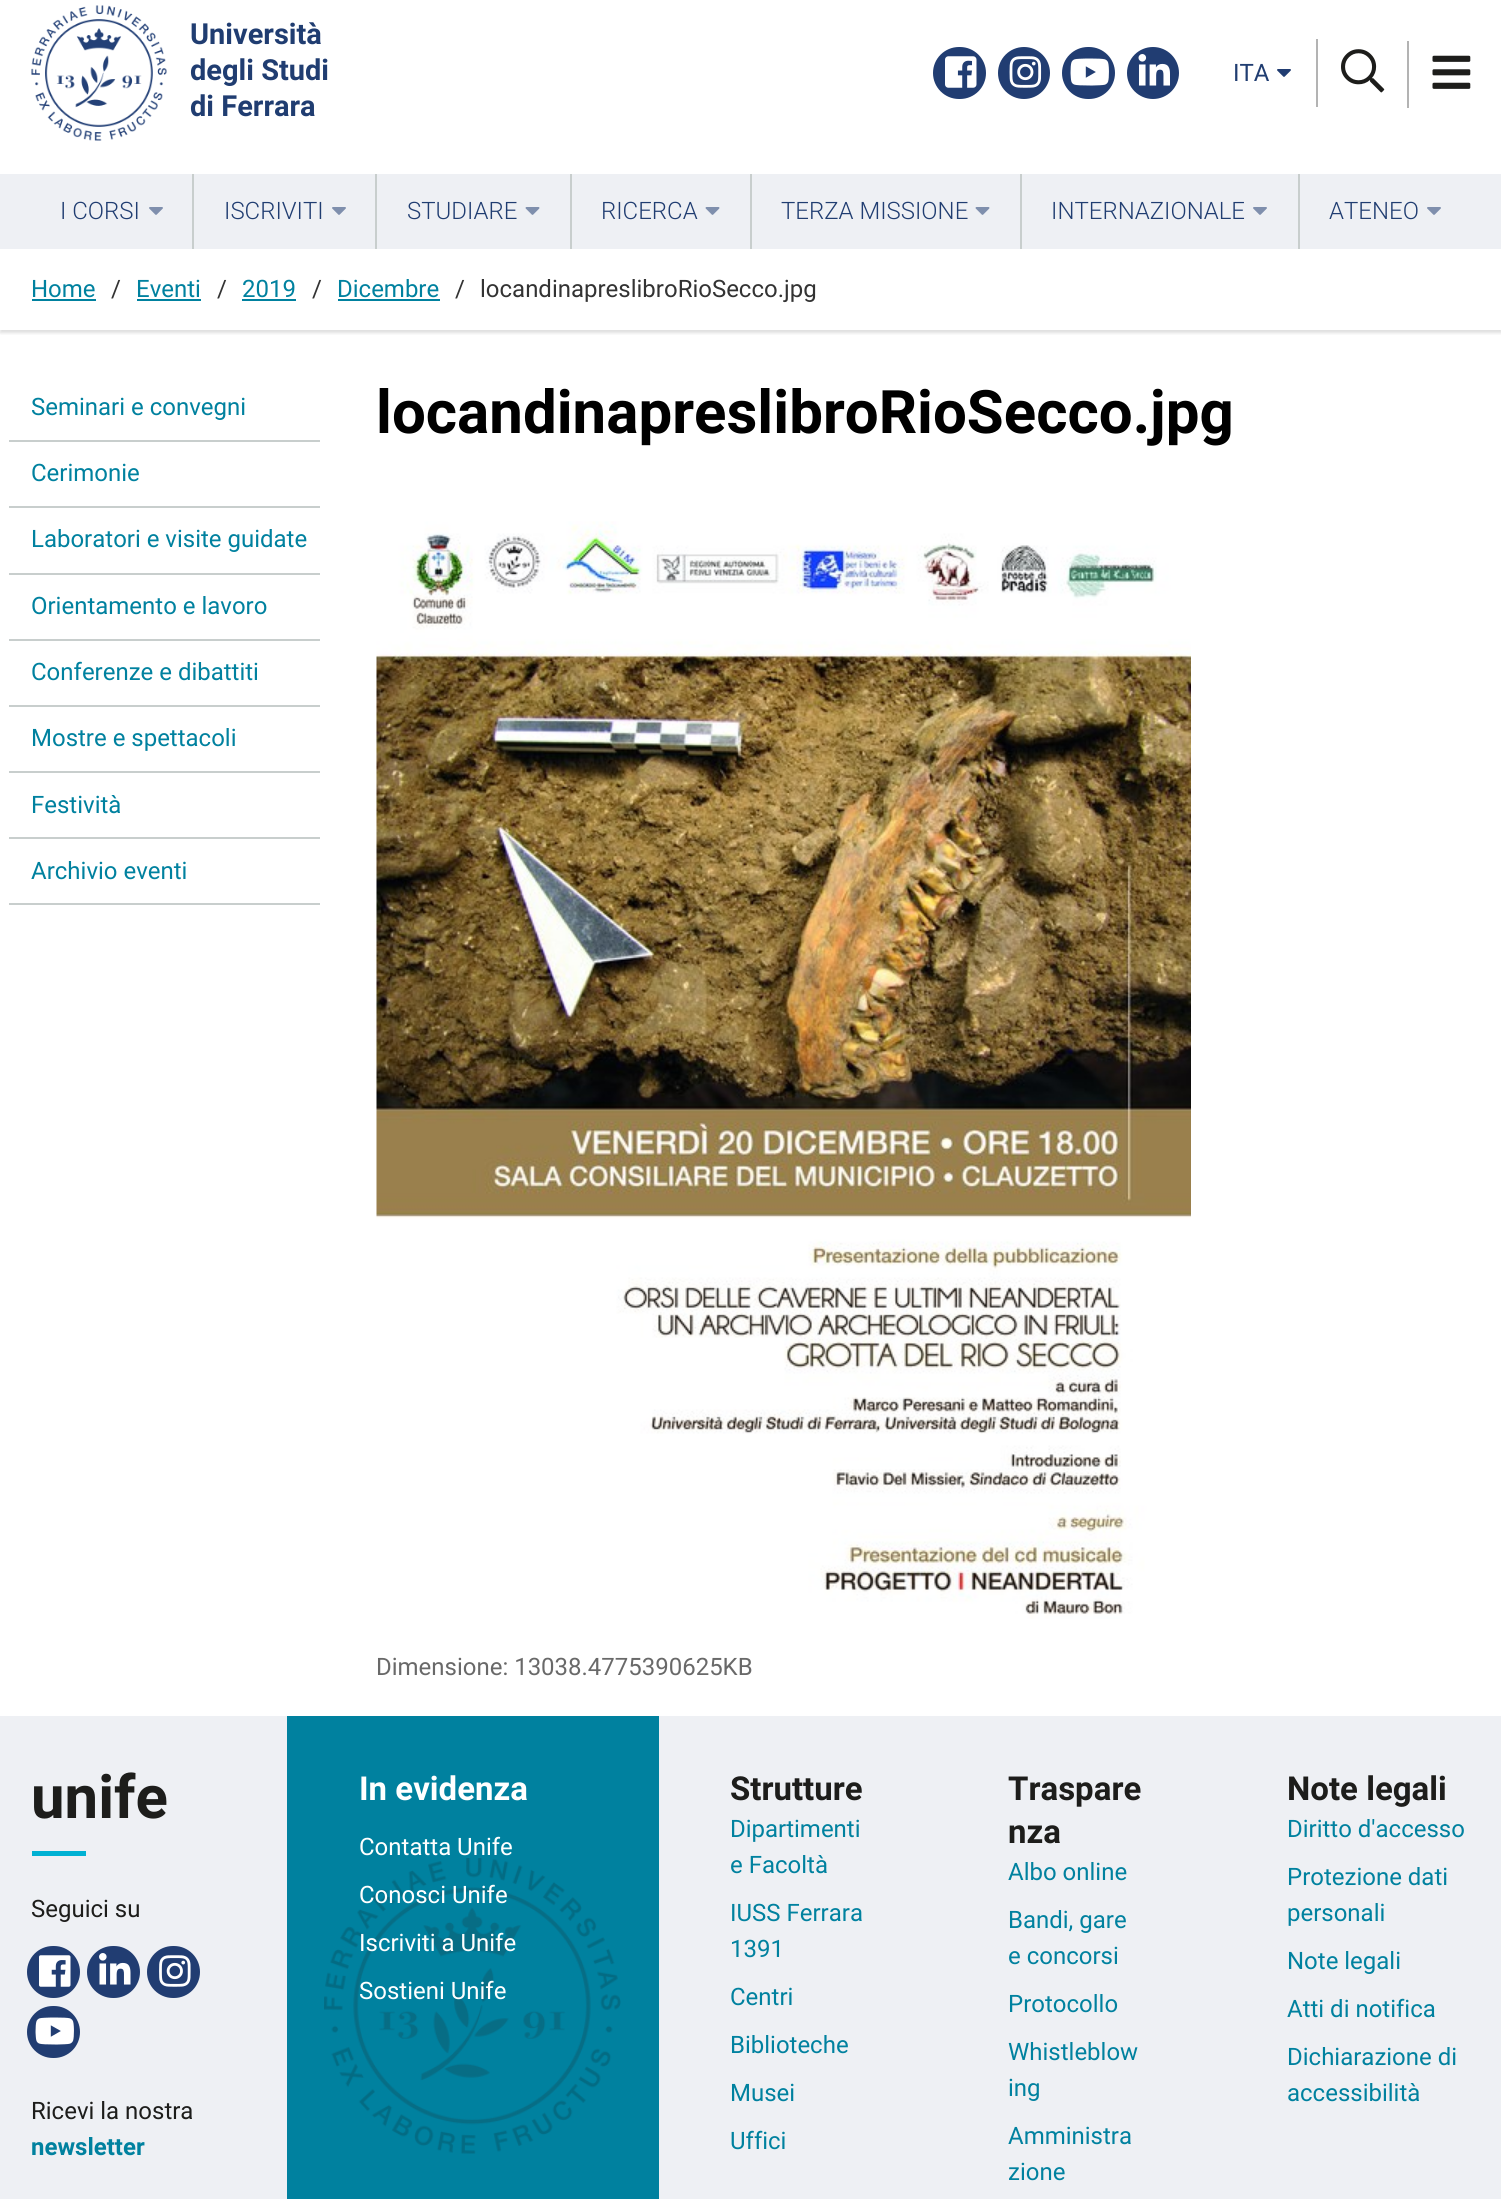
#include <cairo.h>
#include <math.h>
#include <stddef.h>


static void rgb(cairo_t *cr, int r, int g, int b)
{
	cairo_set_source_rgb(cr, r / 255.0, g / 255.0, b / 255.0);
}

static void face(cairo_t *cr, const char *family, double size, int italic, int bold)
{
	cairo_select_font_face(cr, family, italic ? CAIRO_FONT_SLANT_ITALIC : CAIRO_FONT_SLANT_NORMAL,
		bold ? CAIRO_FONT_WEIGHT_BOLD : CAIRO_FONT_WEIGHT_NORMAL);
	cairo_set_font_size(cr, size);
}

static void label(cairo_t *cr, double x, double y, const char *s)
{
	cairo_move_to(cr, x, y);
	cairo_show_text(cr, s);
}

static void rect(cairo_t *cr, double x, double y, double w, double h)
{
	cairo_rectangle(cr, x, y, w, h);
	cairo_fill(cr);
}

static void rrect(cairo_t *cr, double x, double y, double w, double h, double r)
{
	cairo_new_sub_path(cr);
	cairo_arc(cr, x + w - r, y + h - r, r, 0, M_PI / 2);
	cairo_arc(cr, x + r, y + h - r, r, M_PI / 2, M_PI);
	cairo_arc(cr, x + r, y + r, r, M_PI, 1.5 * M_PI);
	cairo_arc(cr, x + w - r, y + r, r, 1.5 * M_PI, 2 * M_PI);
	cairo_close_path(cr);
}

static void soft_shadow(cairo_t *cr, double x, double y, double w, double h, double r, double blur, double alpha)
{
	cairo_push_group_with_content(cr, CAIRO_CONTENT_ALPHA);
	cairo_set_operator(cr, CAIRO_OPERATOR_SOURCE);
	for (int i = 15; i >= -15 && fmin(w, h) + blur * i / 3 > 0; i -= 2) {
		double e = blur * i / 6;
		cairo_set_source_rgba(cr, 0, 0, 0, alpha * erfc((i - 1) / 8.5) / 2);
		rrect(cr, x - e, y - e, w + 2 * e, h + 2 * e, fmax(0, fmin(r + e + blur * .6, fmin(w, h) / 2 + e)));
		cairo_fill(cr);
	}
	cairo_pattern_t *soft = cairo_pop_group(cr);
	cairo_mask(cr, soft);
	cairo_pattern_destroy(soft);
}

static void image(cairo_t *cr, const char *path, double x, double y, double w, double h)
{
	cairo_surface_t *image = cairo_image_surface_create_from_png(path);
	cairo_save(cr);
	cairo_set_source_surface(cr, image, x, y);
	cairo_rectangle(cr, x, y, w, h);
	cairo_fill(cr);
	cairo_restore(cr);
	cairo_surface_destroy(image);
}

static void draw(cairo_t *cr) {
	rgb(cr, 255, 255, 255);
	cairo_paint(cr);
	image(cr, "image0.png", 31, 5, 136, 136);
	face(cr, "Roboto", 29, 0, 1);
	rgb(cr, 32, 61, 113);
	label(cr, 190, 44, "Università");
	label(cr, 190, 80, "degli Studi");
	label(cr, 190, 116, "di Ferrara");
	rgb(cr, 33, 61, 114);
	rrect(cr, 933, 47, 53, 52, 26);
	cairo_fill(cr);
	image(cr, "image1.png", 945, 56, 32, 32);
	cairo_arc(cr, 1024, 73, 26, 0, 2 * M_PI);
	cairo_fill(cr);
	image(cr, "image2.png", 1009, 56, 33, 32);
	rrect(cr, 1062, 47, 53, 52, 26);
	cairo_fill(cr);
	image(cr, "image3.png", 1070, 58, 39, 28);
	cairo_arc(cr, 1153, 73, 26, 0, 2 * M_PI);
	cairo_fill(cr);
	image(cr, "image4.png", 1138, 54, 32, 32);
	face(cr, "Roboto", 24, 0, 0);
	rgb(cr, 32, 61, 113);
	label(cr, 1233, 81, "ITA");
	image(cr, "image5.png", 1277, 69, 14, 8);
	rgb(cr, 179, 179, 179);
	rect(cr, 1316, 39, 2, 68);
	image(cr, "image6.png", 1341, 49, 44, 44);
	rect(cr, 1407, 41, 2, 67);
	image(cr, "image7.png", 1432, 55, 39, 34);
	cairo_save(cr);
	cairo_rectangle(cr, 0, 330, 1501, 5);
	cairo_clip(cr);
	rgb(cr, 0, 0, 0);
	soft_shadow(cr, 0, 252, 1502, 81, 0, 1.5, 0.13);
	cairo_restore(cr);
	rgb(cr, 238, 240, 244);
	rect(cr, 0, 174, 1501, 75);
	rgb(cr, 200, 206, 205);
	rect(cr, 192, 174, 2, 75);
	face(cr, "Roboto Light", 24, 0, 0);
	rgb(cr, 32, 61, 113);
	label(cr, 60, 219, "I CORSI");
	image(cr, "image8.png", 149, 207, 14, 8);
	rgb(cr, 200, 206, 205);
	rect(cr, 375, 174, 2, 75);
	rgb(cr, 32, 61, 113);
	label(cr, 224, 219, "ISCRIVITI");
	image(cr, "image8.png", 332, 207, 14, 8);
	rgb(cr, 200, 206, 205);
	rect(cr, 570, 174, 2, 75);
	rgb(cr, 32, 61, 113);
	label(cr, 407, 219, "STUDIARE");
	image(cr, "image9.png", 525, 207, 15, 8);
	rgb(cr, 200, 206, 205);
	rect(cr, 750, 174, 2, 75);
	rgb(cr, 32, 61, 113);
	label(cr, 601, 219, "RICERCA");
	image(cr, "image9.png", 705, 207, 15, 8);
	rgb(cr, 200, 206, 205);
	rect(cr, 1020, 174, 2, 75);
	rgb(cr, 32, 61, 113);
	label(cr, 781, 219, "TERZA MISSIONE");
	image(cr, "image9.png", 975, 207, 15, 8);
	rgb(cr, 200, 206, 205);
	rect(cr, 1298, 174, 2, 75);
	rgb(cr, 32, 61, 113);
	label(cr, 1051, 219, "INTERNAZIONALE");
	image(cr, "image8.png", 1253, 207, 14, 8);
	label(cr, 1329, 219, "ATENEO");
	image(cr, "image8.png", 1427, 207, 14, 8);
	face(cr, "Roboto", 24, 0, 0);
	rgb(cr, 0, 129, 159);
	label(cr, 31, 297, "Home");
	rect(cr, 32, 299, 64, 2);
	rgb(cr, 51, 51, 51);
	label(cr, 111, 297, "/");
	rgb(cr, 0, 129, 159);
	label(cr, 136, 297, "Eventi");
	rect(cr, 137, 299, 64, 2);
	rgb(cr, 51, 51, 51);
	label(cr, 217, 297, "/");
	rgb(cr, 0, 129, 159);
	label(cr, 242, 297, "2019");
	rect(cr, 242, 299, 54, 2);
	rgb(cr, 51, 51, 51);
	label(cr, 312, 297, "/");
	rgb(cr, 0, 129, 159);
	label(cr, 337, 297, "Dicembre");
	rect(cr, 338, 299, 102, 2);
	rgb(cr, 51, 51, 51);
	label(cr, 455, 297, "/");
	label(cr, 480, 297, "locandinapreslibroRioSecco.jpg");
	rgb(cr, 200, 206, 205);
	rect(cr, 9, 440, 311, 2);
	rgb(cr, 0, 129, 159);
	label(cr, 31, 415, "Seminari e convegni");
	rgb(cr, 200, 206, 205);
	rect(cr, 9, 506, 311, 2);
	rgb(cr, 0, 129, 159);
	label(cr, 31, 481, "Cerimonie");
	rgb(cr, 200, 206, 205);
	rect(cr, 9, 573, 311, 2);
	rgb(cr, 0, 129, 159);
	label(cr, 31, 547, "Laboratori e visite guidate");
	rgb(cr, 200, 206, 205);
	rect(cr, 9, 639, 311, 2);
	rgb(cr, 0, 129, 159);
	label(cr, 31, 614, "Orientamento e lavoro");
	rgb(cr, 200, 206, 205);
	rect(cr, 9, 705, 311, 2);
	rgb(cr, 0, 129, 159);
	label(cr, 31, 680, "Conferenze e dibattiti");
	rgb(cr, 200, 206, 205);
	rect(cr, 9, 771, 311, 2);
	rgb(cr, 0, 129, 159);
	label(cr, 31, 746, "Mostre e spettacoli");
	rgb(cr, 200, 206, 205);
	rect(cr, 9, 837, 311, 2);
	rgb(cr, 0, 129, 159);
	label(cr, 31, 813, "Festività");
	rgb(cr, 200, 206, 205);
	rect(cr, 9, 903, 311, 2);
	rgb(cr, 0, 129, 159);
	label(cr, 31, 879, "Archivio eventi");
	face(cr, "Roboto", 60, 0, 1);
	rgb(cr, 0, 0, 0);
	label(cr, 376, 433, "locandinapreslibroRioSecco.jpg");
	image(cr, "image10.png", 376, 521, 815, 1098);
	face(cr, "Roboto", 24, 0, 0);
	rgb(cr, 105, 105, 105);
	label(cr, 376, 1675, "Dimensione: 13038.4775390625KB");
	rgb(cr, 238, 240, 244);
	rect(cr, 0, 1716, 1501, 483);
	face(cr, "Roboto", 60, 0, 1);
	rgb(cr, 29, 29, 27);
	label(cr, 31, 1818, "unife");
	rgb(cr, 0, 177, 211);
	rect(cr, 32, 1851, 54, 5);
	face(cr, "Roboto", 24, 0, 0);
	rgb(cr, 29, 29, 27);
	label(cr, 31, 1917, "Seguici su");
	rgb(cr, 33, 61, 114);
	rrect(cr, 27, 1946, 53, 52, 26);
	cairo_fill(cr);
	image(cr, "image11.png", 39, 1955, 32, 32);
	rrect(cr, 87, 1946, 53, 52, 26);
	cairo_fill(cr);
	image(cr, "image12.png", 99, 1953, 32, 32);
	rrect(cr, 147, 1946, 53, 52, 26);
	cairo_fill(cr);
	image(cr, "image13.png", 159, 1955, 32, 32);
	rrect(cr, 27, 2006, 53, 52, 26);
	cairo_fill(cr);
	image(cr, "image3.png", 35, 2017, 39, 28);
	rgb(cr, 29, 29, 27);
	label(cr, 31, 2119, "Ricevi la nostra");
	face(cr, "Roboto", 24, 0, 1);
	rgb(cr, 0, 129, 159);
	label(cr, 31, 2155, "newsletter");
	rect(cr, 287, 1716, 372, 483);
	face(cr, "Roboto", 33, 0, 1);
	rgb(cr, 255, 255, 255);
	label(cr, 359, 1800, "In evidenza");
	face(cr, "Roboto", 24, 0, 0);
	label(cr, 359, 1855, "Contatta Unife");
	image(cr, "image14.png", 324, 1858, 297, 296);
	label(cr, 359, 1903, "Conosci Unife");
	label(cr, 359, 1951, "Iscriviti a Unife");
	label(cr, 359, 1999, "Sostieni Unife");
	face(cr, "Roboto", 33, 0, 1);
	rgb(cr, 29, 29, 27);
	label(cr, 730, 1800, "Strutture");
	face(cr, "Roboto", 24, 0, 0);
	rgb(cr, 0, 129, 159);
	label(cr, 730, 1837, "Dipartimenti");
	label(cr, 730, 1873, "e Facoltà");
	label(cr, 730, 1921, "IUSS Ferrara");
	label(cr, 730, 1957, "1391");
	label(cr, 730, 2005, "Centri");
	label(cr, 730, 2053, "Biblioteche");
	label(cr, 730, 2101, "Musei");
	label(cr, 730, 2149, "Uffici");
	face(cr, "Roboto", 33, 0, 1);
	rgb(cr, 29, 29, 27);
	label(cr, 1008, 1800, "Traspare");
	label(cr, 1008, 1843, "nza");
	face(cr, "Roboto", 24, 0, 0);
	rgb(cr, 0, 129, 159);
	label(cr, 1008, 1880, "Albo online");
	label(cr, 1008, 1928, "Bandi, gare");
	label(cr, 1008, 1964, "e concorsi");
	label(cr, 1008, 2012, "Protocollo");
	label(cr, 1008, 2060, "Whistleblow");
	label(cr, 1008, 2096, "ing");
	label(cr, 1008, 2144, "Amministra");
	label(cr, 1008, 2180, "zione");
	face(cr, "Roboto", 33, 0, 1);
	rgb(cr, 29, 29, 27);
	label(cr, 1287, 1800, "Note legali");
	face(cr, "Roboto", 24, 0, 0);
	rgb(cr, 0, 129, 159);
	label(cr, 1287, 1837, "Diritto d'accesso");
	label(cr, 1287, 1885, "Protezione dati");
	label(cr, 1287, 1921, "personali");
	label(cr, 1287, 1969, "Note legali");
	label(cr, 1287, 2017, "Atti di notifica");
	label(cr, 1287, 2065, "Dichiarazione di");
	label(cr, 1287, 2101, "accessibilità");
}

int main(void) {
	cairo_surface_t *surface = cairo_image_surface_create(CAIRO_FORMAT_RGB24, 1501, 2199);
	cairo_t *cr = cairo_create(surface);
	cairo_font_options_t *options = cairo_font_options_create();
	cairo_font_options_set_hint_metrics(options, CAIRO_HINT_METRICS_OFF);
	cairo_font_options_set_hint_style(options, CAIRO_HINT_STYLE_NONE);
	cairo_set_font_options(cr, options);
	cairo_set_miter_limit(cr, 4);
	draw(cr);
	cairo_surface_write_to_png(surface, "render.png");
	cairo_font_options_destroy(options);
	cairo_destroy(cr);
	cairo_surface_destroy(surface);
	return 0;
}
